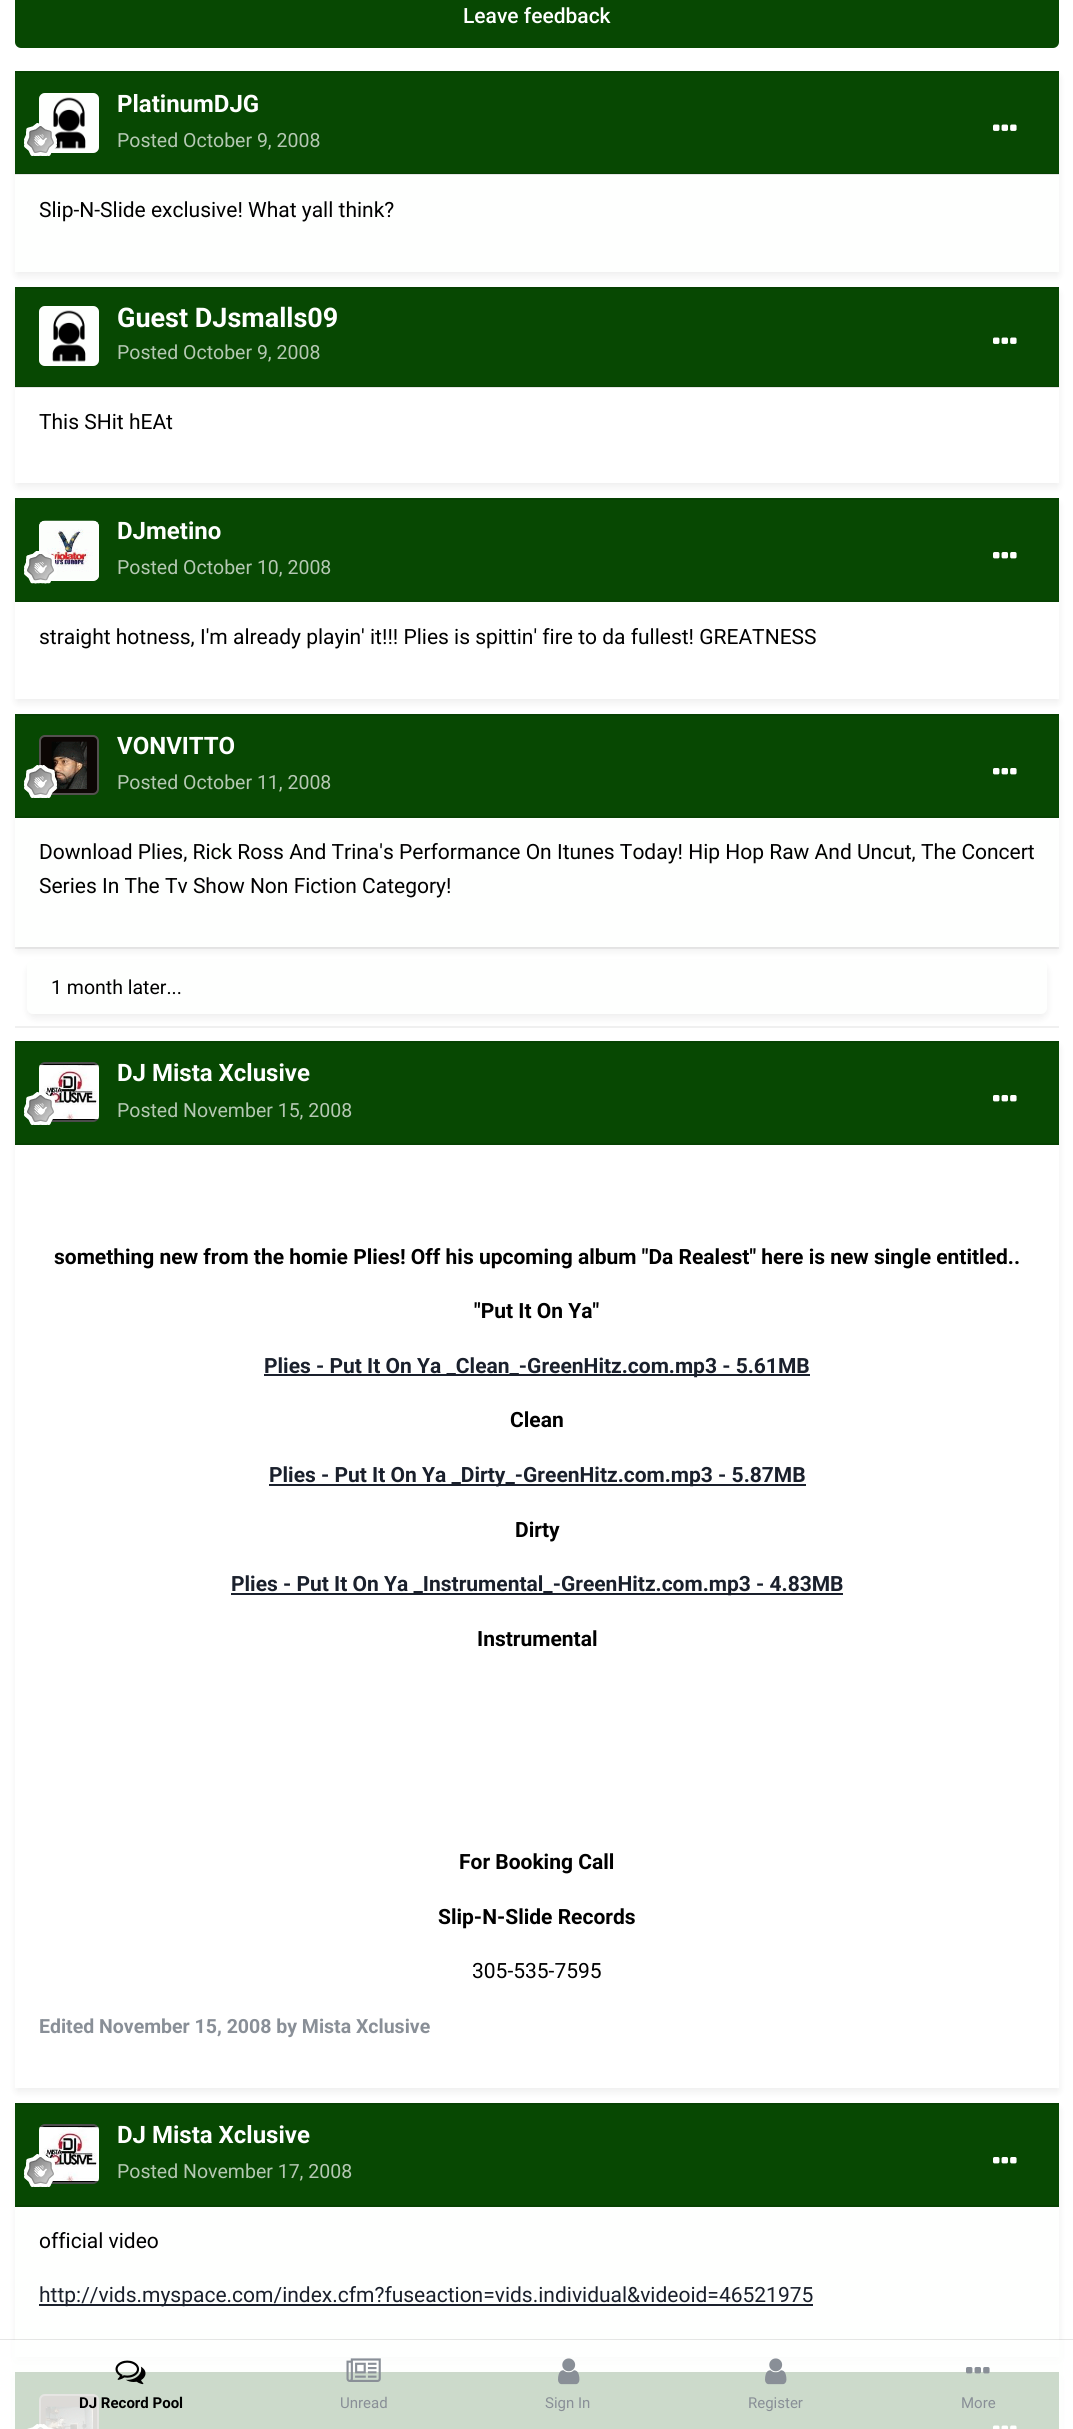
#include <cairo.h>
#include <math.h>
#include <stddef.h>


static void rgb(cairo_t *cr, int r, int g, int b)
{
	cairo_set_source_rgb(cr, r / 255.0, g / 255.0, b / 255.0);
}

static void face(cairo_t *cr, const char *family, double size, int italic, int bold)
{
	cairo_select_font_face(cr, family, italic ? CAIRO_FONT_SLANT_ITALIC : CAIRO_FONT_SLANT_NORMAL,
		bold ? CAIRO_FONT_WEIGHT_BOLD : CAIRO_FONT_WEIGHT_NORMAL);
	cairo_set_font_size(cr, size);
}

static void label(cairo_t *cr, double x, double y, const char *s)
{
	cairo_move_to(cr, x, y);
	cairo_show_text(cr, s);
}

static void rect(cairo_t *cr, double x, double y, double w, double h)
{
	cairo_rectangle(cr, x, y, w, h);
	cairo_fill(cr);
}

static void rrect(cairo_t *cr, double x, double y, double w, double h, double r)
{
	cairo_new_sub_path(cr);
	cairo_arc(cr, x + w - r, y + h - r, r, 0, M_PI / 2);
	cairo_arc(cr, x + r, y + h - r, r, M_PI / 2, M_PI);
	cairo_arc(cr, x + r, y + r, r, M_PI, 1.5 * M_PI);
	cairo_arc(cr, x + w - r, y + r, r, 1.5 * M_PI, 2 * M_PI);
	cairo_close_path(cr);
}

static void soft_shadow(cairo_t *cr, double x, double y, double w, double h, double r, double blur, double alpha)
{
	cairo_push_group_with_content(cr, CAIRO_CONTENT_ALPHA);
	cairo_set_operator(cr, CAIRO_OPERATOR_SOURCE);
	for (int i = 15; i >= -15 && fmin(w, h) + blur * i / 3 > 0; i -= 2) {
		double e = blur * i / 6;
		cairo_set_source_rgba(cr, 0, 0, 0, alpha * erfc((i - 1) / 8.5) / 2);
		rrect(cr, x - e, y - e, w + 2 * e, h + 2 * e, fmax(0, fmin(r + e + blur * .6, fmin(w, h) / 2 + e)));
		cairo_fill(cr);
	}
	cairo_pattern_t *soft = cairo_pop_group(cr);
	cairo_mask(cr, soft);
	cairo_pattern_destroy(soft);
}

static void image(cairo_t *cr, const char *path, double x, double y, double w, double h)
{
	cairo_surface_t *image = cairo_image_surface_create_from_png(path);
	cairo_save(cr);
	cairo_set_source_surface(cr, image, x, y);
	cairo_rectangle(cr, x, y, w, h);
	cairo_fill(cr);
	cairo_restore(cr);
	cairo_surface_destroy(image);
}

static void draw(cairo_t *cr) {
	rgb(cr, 255, 255, 255);
	cairo_paint(cr);
	rgb(cr, 230, 230, 230);
	rect(cr, 15, 387, 1044, 1);
	rgb(cr, 7, 72, 2);
	rrect(cr, 15, -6, 1044, 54, 6);
	cairo_fill(cr);
	face(cr, "Roboto Medium", 21, 0, 0);
	rgb(cr, 255, 255, 255);
	label(cr, 463, 23, "Leave feedback");
	rgb(cr, 0, 0, 0);
	soft_shadow(cr, 17, 77, 1041, 198, 0, 4.5, 0.08);
	rgb(cr, 254, 255, 254);
	rect(cr, 15, 175, 1044, 97);
	rgb(cr, 229, 230, 229);
	rect(cr, 15, 174, 1044, 1);
	rgb(cr, 7, 72, 2);
	rect(cr, 15, 73, 1044, 100);
	rgb(cr, 6, 65, 2);
	rect(cr, 15, 173, 1044, 1);
	rect(cr, 15, 71, 1044, 2);
	rgb(cr, 254, 255, 254);
	rrect(cr, 39, 93, 60, 60, 6);
	cairo_fill(cr);
	image(cr, "image0.png", 53, 97, 33, 52);
	rrect(cr, 40, 94, 58, 58, 5);
	cairo_set_source_rgba(cr, 1, 1, 1, 0.3);
	cairo_stroke(cr);
	image(cr, "image1.png", 24, 123, 33, 33);
	face(cr, "Roboto", 24, 0, 1);
	rgb(cr, 255, 255, 255);
	label(cr, 117, 112, "PlatinumDJG");
	face(cr, "Roboto", 19.5, 0, 0);
	rgb(cr, 181, 200, 179);
	label(cr, 117, 147, "Posted October 9, 2008");
	image(cr, "image2.png", 993, 124, 24, 7);
	face(cr, "Roboto", 21, 0, 0);
	rgb(cr, 0, 0, 0);
	label(cr, 39, 217, "Slip-N-Slide exclusive! What yall think?");
	cairo_save(cr);
	cairo_set_fill_rule(cr, CAIRO_FILL_RULE_EVEN_ODD);
	cairo_new_path(cr);
	cairo_move_to(cr, 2, 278);
	cairo_line_to(cr, 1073, 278);
	cairo_line_to(cr, 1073, 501);
	cairo_line_to(cr, 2, 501);
	cairo_close_path(cr);
	cairo_move_to(cr, 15, 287);
	cairo_line_to(cr, 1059, 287);
	cairo_line_to(cr, 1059, 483);
	cairo_line_to(cr, 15, 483);
	cairo_close_path(cr);
	cairo_clip(cr);
	rgb(cr, 0, 0, 0);
	soft_shadow(cr, 17, 293, 1041, 193, 0, 4.5, 0.08);
	cairo_restore(cr);
	rgb(cr, 7, 72, 2);
	rect(cr, 15, 289, 1044, 97);
	rgb(cr, 6, 65, 2);
	rect(cr, 15, 386, 1044, 1);
	rect(cr, 15, 287, 1044, 2);
	rgb(cr, 254, 255, 254);
	rrect(cr, 39, 306, 60, 60, 6);
	cairo_fill(cr);
	image(cr, "image3.png", 52, 310, 34, 52);
	rrect(cr, 40, 307, 58, 58, 5);
	cairo_set_source_rgba(cr, 1, 1, 1, 0.3);
	cairo_stroke(cr);
	face(cr, "Roboto", 27, 0, 1);
	rgb(cr, 255, 255, 255);
	label(cr, 117, 327, "Guest DJsmalls09");
	face(cr, "Roboto", 19.5, 0, 0);
	rgb(cr, 181, 200, 179);
	label(cr, 117, 359, "Posted October 9, 2008");
	image(cr, "image2.png", 993, 337, 24, 7);
	face(cr, "Roboto", 21, 0, 0);
	rgb(cr, 0, 0, 0);
	label(cr, 39, 429, "This SHit hEAt");
	cairo_save(cr);
	cairo_set_fill_rule(cr, CAIRO_FILL_RULE_EVEN_ODD);
	cairo_new_path(cr);
	cairo_move_to(cr, 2, 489);
	cairo_line_to(cr, 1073, 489);
	cairo_line_to(cr, 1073, 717);
	cairo_line_to(cr, 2, 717);
	cairo_close_path(cr);
	cairo_move_to(cr, 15, 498);
	cairo_line_to(cr, 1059, 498);
	cairo_line_to(cr, 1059, 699);
	cairo_line_to(cr, 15, 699);
	cairo_close_path(cr);
	cairo_clip(cr);
	rgb(cr, 0, 0, 0);
	soft_shadow(cr, 17, 504, 1041, 198, 0, 4.5, 0.08);
	cairo_restore(cr);
	rgb(cr, 7, 72, 2);
	rect(cr, 15, 500, 1044, 100);
	rgb(cr, 6, 65, 2);
	rect(cr, 15, 498, 1044, 2);
	rect(cr, 15, 600, 1044, 2);
	rgb(cr, 254, 255, 254);
	rrect(cr, 39, 521, 60, 60, 6);
	cairo_fill(cr);
	image(cr, "image4.png", 39, 520, 60, 61);
	rrect(cr, 40, 522, 58, 58, 5);
	cairo_set_source_rgba(cr, 1, 1, 1, 0.3);
	cairo_stroke(cr);
	image(cr, "image5.png", 24, 551, 33, 33);
	face(cr, "Roboto", 24, 0, 1);
	rgb(cr, 255, 255, 255);
	label(cr, 117, 539, "DJmetino");
	face(cr, "Roboto", 19.5, 0, 0);
	rgb(cr, 181, 200, 179);
	label(cr, 117, 574, "Posted October 10, 2008");
	image(cr, "image6.png", 993, 552, 24, 7);
	face(cr, "Roboto", 21, 0, 0);
	rgb(cr, 0, 0, 0);
	label(cr, 39, 644, "straight hotness, I'm already playin' it!!! Plies is spittin' fire to da fullest! GREATNESS");
	rgb(cr, 240, 240, 240);
	rect(cr, 15, 947, 1044, 2);
	rect(cr, 15, 1026, 1044, 2);
	rgb(cr, 0, 0, 0);
	soft_shadow(cr, 29, 966, 1017, 51, 5, 4.5, 0.08);
	rgb(cr, 254, 255, 254);
	rrect(cr, 27, 960, 1020, 54, 6);
	cairo_fill(cr);
	rgb(cr, 0, 0, 0);
	soft_shadow(cr, 17, 720, 1041, 230, 0, 4.5, 0.08);
	rgb(cr, 254, 255, 254);
	rect(cr, 15, 818, 1044, 129);
	rgb(cr, 7, 72, 2);
	rect(cr, 15, 716, 1044, 100);
	rgb(cr, 6, 65, 2);
	rect(cr, 15, 714, 1044, 2);
	rect(cr, 15, 816, 1044, 2);
	image(cr, "image7.png", 39, 735, 60, 60);
	rrect(cr, 40, 736, 58, 58, 5);
	cairo_set_source_rgba(cr, 1, 1, 1, 0.3);
	cairo_stroke(cr);
	image(cr, "image8.png", 24, 765, 33, 33);
	face(cr, "Roboto", 24, 0, 1);
	rgb(cr, 255, 255, 255);
	label(cr, 117, 754, "VONVITTO");
	face(cr, "Roboto", 19.5, 0, 0);
	rgb(cr, 181, 200, 179);
	label(cr, 117, 789, "Posted October 11, 2008");
	image(cr, "image6.png", 993, 768, 24, 7);
	face(cr, "Roboto", 21, 0, 0);
	rgb(cr, 0, 0, 0);
	label(cr, 39, 859, "Download Plies, Rick Ross And Trina's Performance On Itunes Today! Hip Hop Raw And Uncut, The Concert");
	label(cr, 39, 893, "Series In The Tv Show Non Fiction Category!");
	face(cr, "Roboto", 19.5, 0, 0);
	label(cr, 51, 994, "1 month later...");
	cairo_save(cr);
	cairo_set_fill_rule(cr, CAIRO_FILL_RULE_EVEN_ODD);
	cairo_new_path(cr);
	cairo_move_to(cr, 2, 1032);
	cairo_line_to(cr, 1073, 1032);
	cairo_line_to(cr, 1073, 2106);
	cairo_line_to(cr, 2, 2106);
	cairo_close_path(cr);
	cairo_move_to(cr, 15, 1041);
	cairo_line_to(cr, 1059, 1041);
	cairo_line_to(cr, 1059, 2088);
	cairo_line_to(cr, 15, 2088);
	cairo_close_path(cr);
	cairo_clip(cr);
	rgb(cr, 0, 0, 0);
	soft_shadow(cr, 17, 1047, 1041, 1044, 0, 4.5, 0.08);
	cairo_restore(cr);
	rgb(cr, 7, 72, 2);
	rect(cr, 15, 1043, 1044, 100);
	rgb(cr, 6, 65, 2);
	rect(cr, 15, 1041, 1044, 2);
	rect(cr, 15, 1143, 1044, 2);
	image(cr, "image9.png", 39, 1062, 60, 60);
	rrect(cr, 40, 1063, 58, 58, 5);
	cairo_set_source_rgba(cr, 1, 1, 1, 0.3);
	cairo_stroke(cr);
	image(cr, "image10.png", 24, 1092, 31, 33);
	face(cr, "Roboto", 24, 0, 1);
	rgb(cr, 255, 255, 255);
	label(cr, 117, 1081, "DJ Mista Xclusive");
	face(cr, "Roboto", 19.5, 0, 0);
	rgb(cr, 181, 200, 179);
	label(cr, 117, 1117, "Posted November 15, 2008");
	image(cr, "image6.png", 993, 1095, 24, 7);
	face(cr, "Roboto", 21, 0, 1);
	rgb(cr, 0, 0, 0);
	label(cr, 54, 1264, "something new from the homie Plies! Off his upcoming album \"Da Realest\" here is new single entitled..");
	label(cr, 474, 1318, "\"Put It On Ya\"");
	rgb(cr, 26, 32, 44);
	rect(cr, 264, 1374, 546, 2);
	label(cr, 264, 1373, "Plies - Put It On Ya _Clean_-GreenHitz.com.mp3 - 5.61MB");
	rgb(cr, 0, 0, 0);
	label(cr, 510, 1427, "Clean");
	rgb(cr, 26, 32, 44);
	rect(cr, 269, 1484, 537, 2);
	label(cr, 269, 1482, "Plies - Put It On Ya _Dirty_-GreenHitz.com.mp3 - 5.87MB");
	rgb(cr, 0, 0, 0);
	label(cr, 515, 1537, "Dirty");
	rgb(cr, 26, 32, 44);
	rect(cr, 231, 1593, 612, 2);
	label(cr, 231, 1591, "Plies - Put It On Ya _Instrumental_-GreenHitz.com.mp3 - 4.83MB");
	rgb(cr, 0, 0, 0);
	label(cr, 477, 1646, "Instrumental");
	label(cr, 459, 1869, "For Booking Call");
	label(cr, 438, 1924, "Slip-N-Slide Records");
	face(cr, "Roboto", 21, 0, 0);
	label(cr, 472, 1978, "305-535-7595");
	face(cr, "Roboto", 19.5, 0, 1);
	rgb(cr, 137, 143, 151);
	label(cr, 39, 2033, "Edited November 15, 2008 by Mista Xclusive");
	rgb(cr, 0, 0, 0);
	soft_shadow(cr, 17, 2109, 1041, 251, 0, 4.5, 0.08);
	rgb(cr, 254, 255, 254);
	rect(cr, 15, 2207, 1044, 150);
	rgb(cr, 7, 72, 2);
	rect(cr, 15, 2105, 1044, 100);
	rgb(cr, 6, 65, 2);
	rect(cr, 15, 2103, 1044, 2);
	rect(cr, 15, 2205, 1044, 2);
	image(cr, "image9.png", 39, 2124, 60, 60);
	rrect(cr, 40, 2125, 58, 58, 5);
	cairo_set_source_rgba(cr, 1, 1, 1, 0.3);
	cairo_stroke(cr);
	image(cr, "image10.png", 24, 2154, 31, 33);
	face(cr, "Roboto", 24, 0, 1);
	rgb(cr, 255, 255, 255);
	label(cr, 117, 2143, "DJ Mista Xclusive");
	face(cr, "Roboto", 19.5, 0, 0);
	rgb(cr, 181, 200, 179);
	label(cr, 117, 2178, "Posted November 17, 2008");
	image(cr, "image6.png", 993, 2157, 24, 7);
	face(cr, "Roboto", 21, 0, 0);
	rgb(cr, 0, 0, 0);
	label(cr, 39, 2248, "official video");
	rgb(cr, 26, 32, 44);
	rect(cr, 39, 2304, 774, 2);
	label(cr, 39, 2302, "http://vids.myspace.com/index.cfm?fuseaction=vids.individual&videoid=46521975");
	rgb(cr, 0, 0, 0);
	soft_shadow(cr, 17, 2378, 1041, 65, 0, 4.5, 0.08);
	rgb(cr, 7, 72, 2);
	rect(cr, 15, 2374, 1044, 55);
	rgb(cr, 6, 65, 2);
	rect(cr, 15, 2372, 1044, 2);
	image(cr, "image11.png", 39, 2394, 60, 35);
	rrect(cr, 40, 2395, 58, 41, 5);
	cairo_set_source_rgba(cr, 1, 1, 1, 0.3);
	cairo_stroke(cr);
	image(cr, "image12.png", 27, 2424, 27, 5);
	image(cr, "image13.png", 993, 2425, 24, 4);
	cairo_set_source_rgba(cr, 0, 0, 0, 0.1);
	rect(cr, 0, 2339, 1073, 1);
	cairo_set_source_rgba(cr, 0.996, 1, 0.996, 0.8);
	rect(cr, 12, 2340, 1051, 89);
	image(cr, "image14.png", 115, 2360, 31, 25);
	face(cr, "Roboto", 15, 0, 1);
	rgb(cr, 0, 0, 0);
	label(cr, 79, 2408, "DJ Record Pool");
	image(cr, "image15.png", 346, 2358, 35, 24);
	face(cr, "Roboto", 15, 0, 0);
	rgb(cr, 137, 143, 151);
	label(cr, 340, 2408, "Unread");
	image(cr, "image16.png", 558, 2358, 22, 27);
	label(cr, 545, 2408, "Sign In");
	image(cr, "image16.png", 765, 2358, 22, 27);
	label(cr, 748, 2408, "Register");
	image(cr, "image17.png", 966, 2367, 24, 7);
	label(cr, 961, 2408, "More");
}

int main(void) {
	cairo_surface_t *surface = cairo_image_surface_create(CAIRO_FORMAT_RGB24, 1073, 2429);
	cairo_t *cr = cairo_create(surface);
	cairo_font_options_t *options = cairo_font_options_create();
	cairo_font_options_set_hint_metrics(options, CAIRO_HINT_METRICS_OFF);
	cairo_font_options_set_hint_style(options, CAIRO_HINT_STYLE_NONE);
	cairo_set_font_options(cr, options);
	cairo_set_miter_limit(cr, 4);
	draw(cr);
	cairo_surface_write_to_png(surface, "render.png");
	cairo_font_options_destroy(options);
	cairo_destroy(cr);
	cairo_surface_destroy(surface);
	return 0;
}
